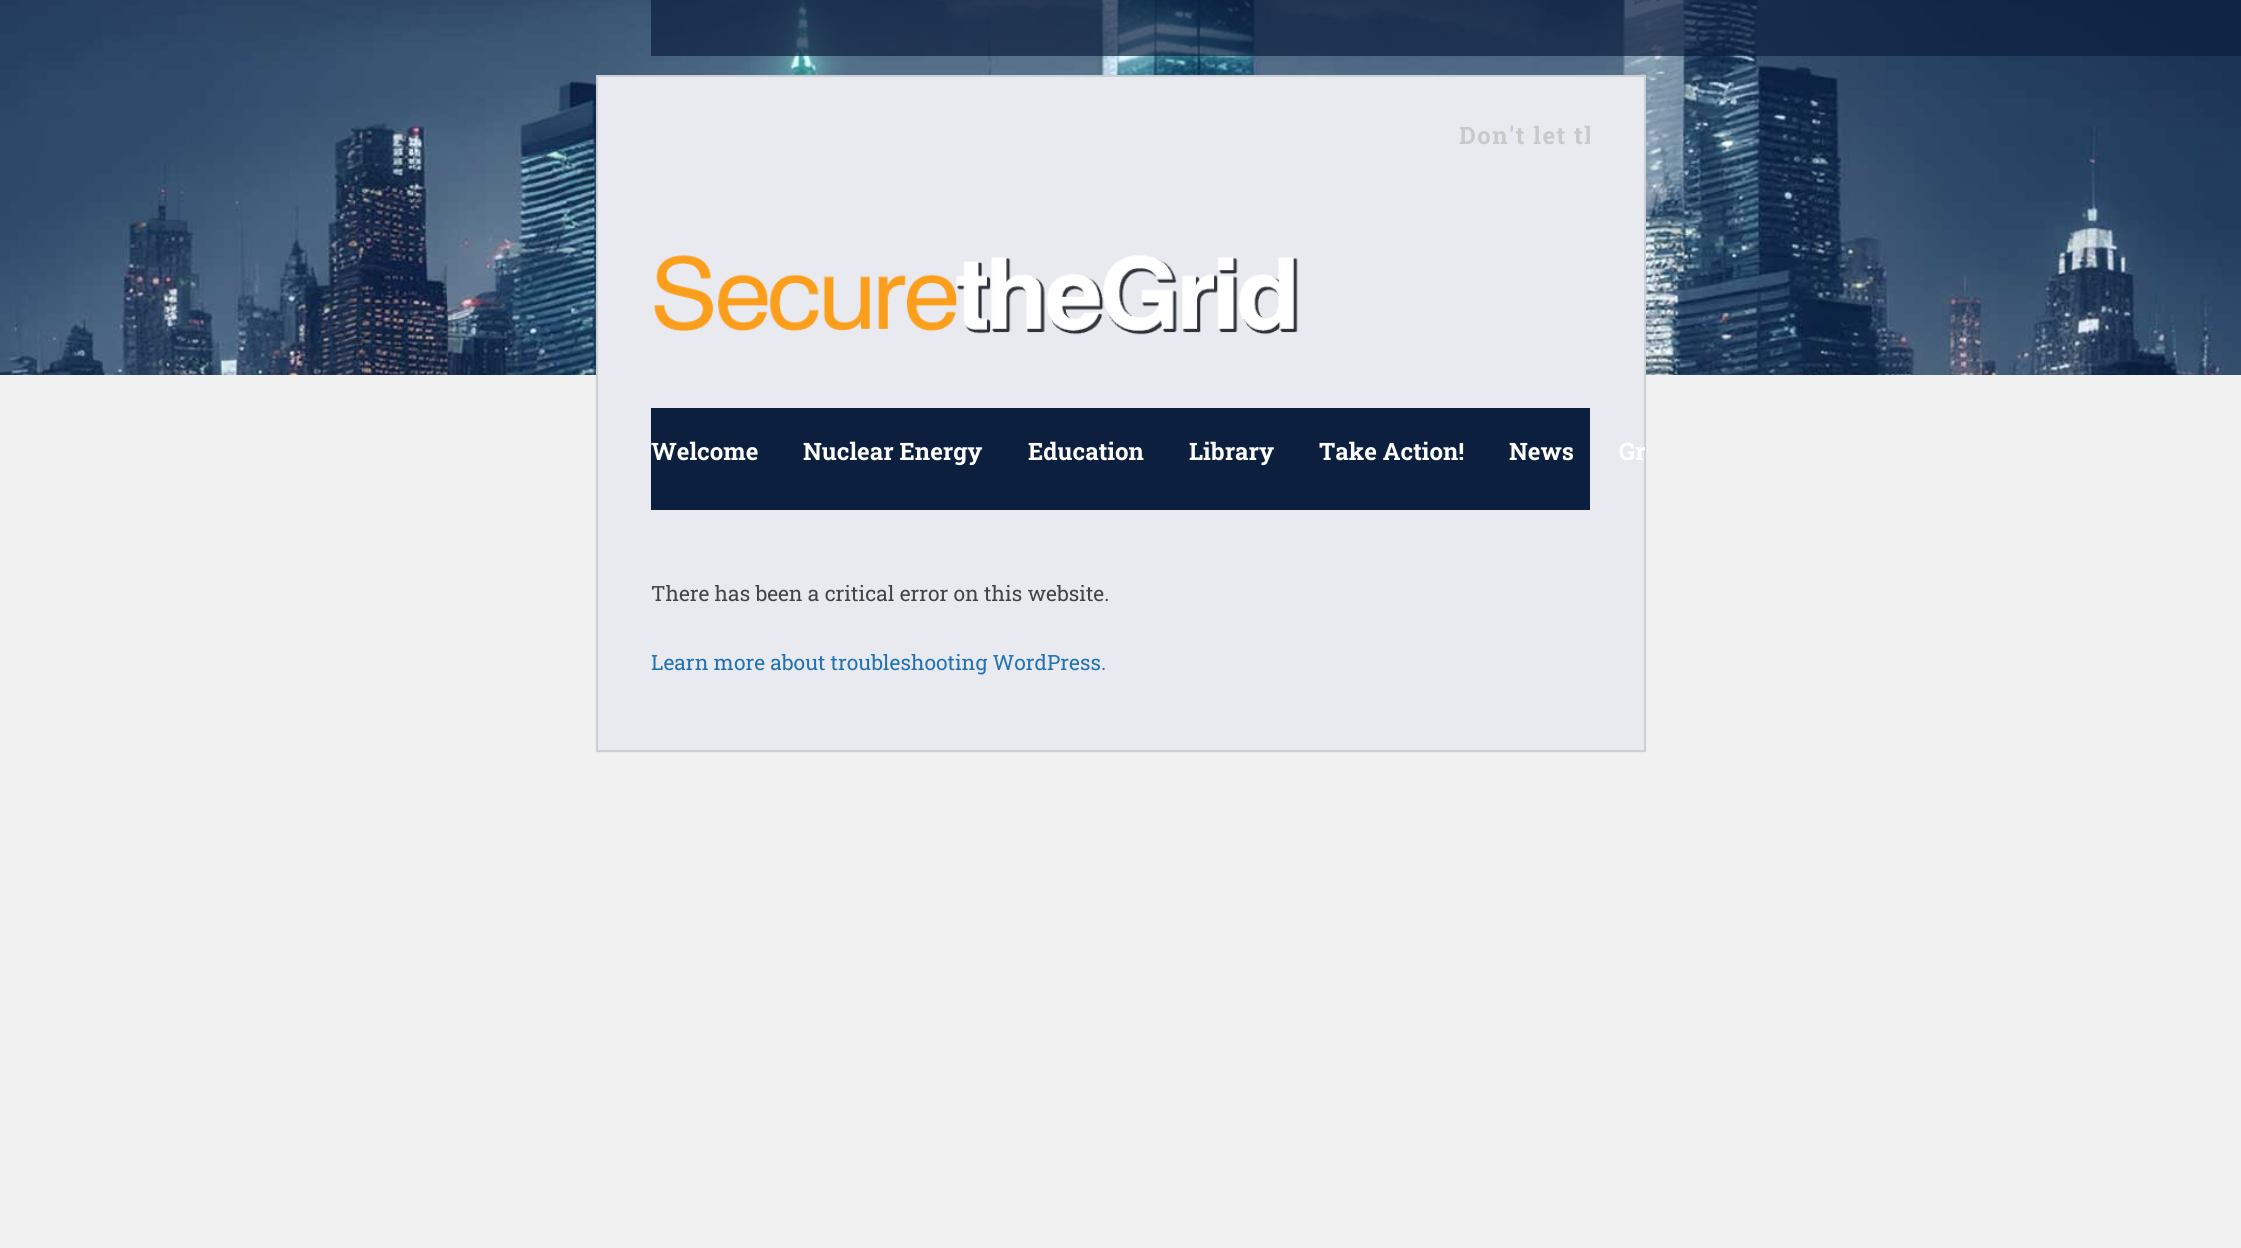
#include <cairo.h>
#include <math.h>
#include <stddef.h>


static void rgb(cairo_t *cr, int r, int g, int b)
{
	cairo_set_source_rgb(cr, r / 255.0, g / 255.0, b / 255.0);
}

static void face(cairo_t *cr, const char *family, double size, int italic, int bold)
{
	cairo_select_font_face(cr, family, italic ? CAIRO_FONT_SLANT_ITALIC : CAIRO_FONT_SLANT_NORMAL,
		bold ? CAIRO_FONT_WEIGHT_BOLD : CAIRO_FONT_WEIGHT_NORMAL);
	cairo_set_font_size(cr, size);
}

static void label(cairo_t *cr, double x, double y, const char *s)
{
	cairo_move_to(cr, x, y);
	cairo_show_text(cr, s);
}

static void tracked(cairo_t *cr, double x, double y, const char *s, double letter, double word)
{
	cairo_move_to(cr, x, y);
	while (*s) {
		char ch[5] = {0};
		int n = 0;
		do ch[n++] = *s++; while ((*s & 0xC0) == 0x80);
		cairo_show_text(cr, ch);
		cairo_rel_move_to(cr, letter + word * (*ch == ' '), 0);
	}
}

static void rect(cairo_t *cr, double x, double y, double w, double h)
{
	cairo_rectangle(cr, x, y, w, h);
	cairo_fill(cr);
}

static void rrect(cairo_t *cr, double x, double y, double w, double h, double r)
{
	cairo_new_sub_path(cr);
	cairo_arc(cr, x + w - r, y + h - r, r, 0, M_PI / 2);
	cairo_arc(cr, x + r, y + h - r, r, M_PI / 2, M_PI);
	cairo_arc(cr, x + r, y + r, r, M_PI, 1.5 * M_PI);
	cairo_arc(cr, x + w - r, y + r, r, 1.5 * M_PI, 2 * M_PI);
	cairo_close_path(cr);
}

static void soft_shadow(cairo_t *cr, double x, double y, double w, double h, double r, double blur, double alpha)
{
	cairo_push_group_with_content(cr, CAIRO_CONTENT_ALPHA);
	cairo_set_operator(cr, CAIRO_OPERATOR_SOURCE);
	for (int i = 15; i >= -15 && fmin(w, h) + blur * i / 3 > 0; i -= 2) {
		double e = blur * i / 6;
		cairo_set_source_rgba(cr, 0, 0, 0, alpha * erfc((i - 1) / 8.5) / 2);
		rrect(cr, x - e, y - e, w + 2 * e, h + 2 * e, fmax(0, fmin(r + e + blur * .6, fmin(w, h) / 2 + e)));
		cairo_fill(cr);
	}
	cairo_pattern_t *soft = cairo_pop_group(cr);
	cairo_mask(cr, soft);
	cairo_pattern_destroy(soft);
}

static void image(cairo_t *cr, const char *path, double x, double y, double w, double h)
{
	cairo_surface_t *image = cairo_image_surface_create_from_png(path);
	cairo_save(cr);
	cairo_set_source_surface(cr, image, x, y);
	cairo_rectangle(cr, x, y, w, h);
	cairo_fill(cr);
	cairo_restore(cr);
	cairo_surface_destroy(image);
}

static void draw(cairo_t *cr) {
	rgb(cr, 241, 241, 241);
	cairo_paint(cr);
	image(cr, "image0.png", 0, 0, 2241, 375);
	rgb(cr, 0, 0, 0);
	soft_shadow(cr, 596, 77, 1050, 676, 0, 1, 0.04);
	rgb(cr, 232, 234, 239);
	cairo_rectangle(cr, 597, 76, 1048, 675);
	cairo_fill_preserve(cr);
	rgb(cr, 204, 208, 212);
	cairo_stroke(cr);
	cairo_set_source_rgba(cr, 0.047, 0.122, 0.243, 0.7);
	rect(cr, 651, 0, 1590, 56);
	cairo_save(cr);
	cairo_rectangle(cr, 651, 114, 939, 68);
	cairo_clip(cr);
	face(cr, "Roboto Slab", 24, 0, 1);
	rgb(cr, 201, 201, 201);
	tracked(cr, 1459, 144, "Don't let th", 1.5, 0);
	cairo_restore(cr);
	image(cr, "image1.png", 654, 255, 644, 80);
	rgb(cr, 12, 31, 62);
	rect(cr, 651, 408, 939, 102);
	face(cr, "Roboto Slab", 24, 0, 1);
	rgb(cr, 255, 255, 255);
	label(cr, 651, 460, "Welcome");
	label(cr, 803, 460, "Nuclear Energy");
	label(cr, 1028, 460, "Education");
	label(cr, 1189, 460, "Library");
	label(cr, 1319, 460, "Take Action!");
	label(cr, 1509, 460, "News");
	label(cr, 1619, 460, "Gr");
	face(cr, "Roboto Slab", 21, 0, 0);
	rgb(cr, 68, 68, 68);
	label(cr, 651, 601, "There has been a critical error on this website.");
	rgb(cr, 34, 113, 177);
	label(cr, 651, 670, "Learn more about troubleshooting WordPress.");
}

int main(void) {
	cairo_surface_t *surface = cairo_image_surface_create(CAIRO_FORMAT_RGB24, 2241, 1248);
	cairo_t *cr = cairo_create(surface);
	cairo_font_options_t *options = cairo_font_options_create();
	cairo_font_options_set_hint_metrics(options, CAIRO_HINT_METRICS_OFF);
	cairo_font_options_set_hint_style(options, CAIRO_HINT_STYLE_NONE);
	cairo_set_font_options(cr, options);
	cairo_set_miter_limit(cr, 4);
	draw(cr);
	cairo_surface_write_to_png(surface, "render.png");
	cairo_font_options_destroy(options);
	cairo_destroy(cr);
	cairo_surface_destroy(surface);
	return 0;
}
